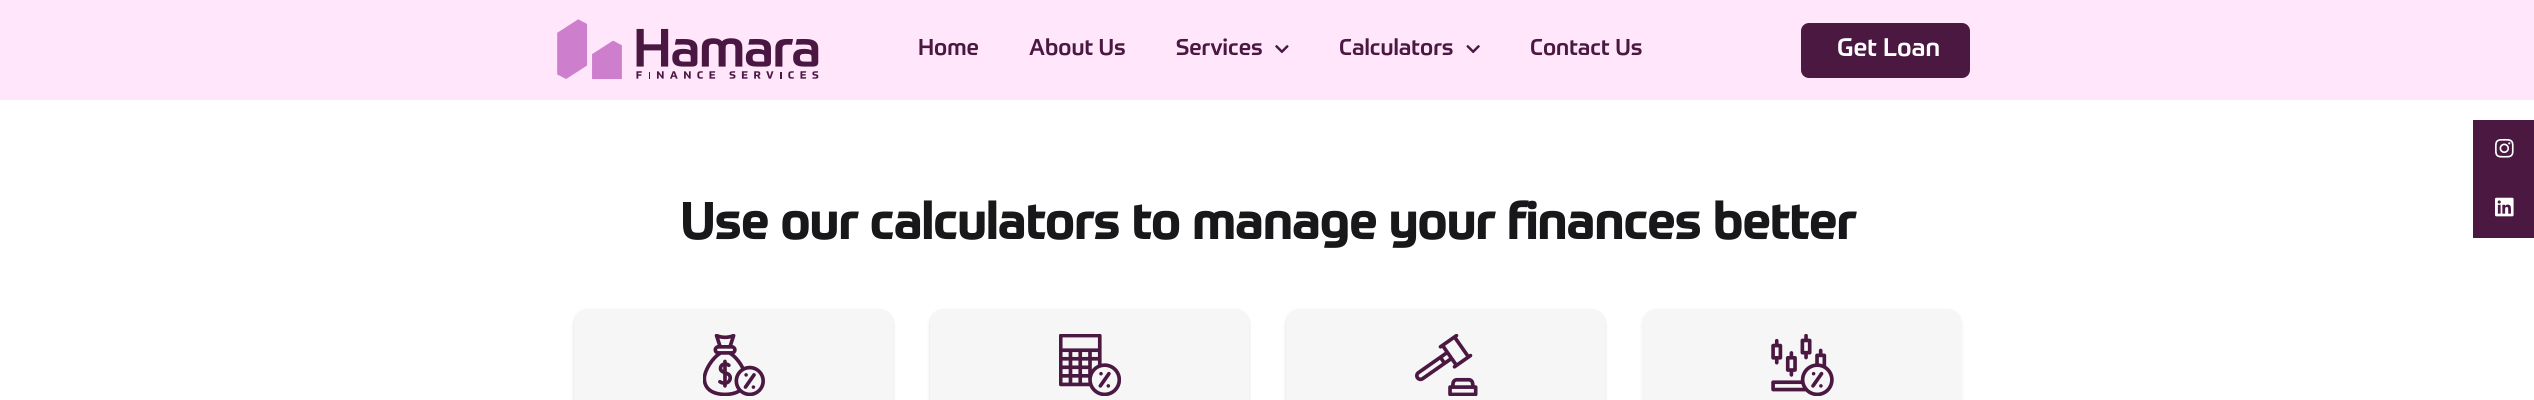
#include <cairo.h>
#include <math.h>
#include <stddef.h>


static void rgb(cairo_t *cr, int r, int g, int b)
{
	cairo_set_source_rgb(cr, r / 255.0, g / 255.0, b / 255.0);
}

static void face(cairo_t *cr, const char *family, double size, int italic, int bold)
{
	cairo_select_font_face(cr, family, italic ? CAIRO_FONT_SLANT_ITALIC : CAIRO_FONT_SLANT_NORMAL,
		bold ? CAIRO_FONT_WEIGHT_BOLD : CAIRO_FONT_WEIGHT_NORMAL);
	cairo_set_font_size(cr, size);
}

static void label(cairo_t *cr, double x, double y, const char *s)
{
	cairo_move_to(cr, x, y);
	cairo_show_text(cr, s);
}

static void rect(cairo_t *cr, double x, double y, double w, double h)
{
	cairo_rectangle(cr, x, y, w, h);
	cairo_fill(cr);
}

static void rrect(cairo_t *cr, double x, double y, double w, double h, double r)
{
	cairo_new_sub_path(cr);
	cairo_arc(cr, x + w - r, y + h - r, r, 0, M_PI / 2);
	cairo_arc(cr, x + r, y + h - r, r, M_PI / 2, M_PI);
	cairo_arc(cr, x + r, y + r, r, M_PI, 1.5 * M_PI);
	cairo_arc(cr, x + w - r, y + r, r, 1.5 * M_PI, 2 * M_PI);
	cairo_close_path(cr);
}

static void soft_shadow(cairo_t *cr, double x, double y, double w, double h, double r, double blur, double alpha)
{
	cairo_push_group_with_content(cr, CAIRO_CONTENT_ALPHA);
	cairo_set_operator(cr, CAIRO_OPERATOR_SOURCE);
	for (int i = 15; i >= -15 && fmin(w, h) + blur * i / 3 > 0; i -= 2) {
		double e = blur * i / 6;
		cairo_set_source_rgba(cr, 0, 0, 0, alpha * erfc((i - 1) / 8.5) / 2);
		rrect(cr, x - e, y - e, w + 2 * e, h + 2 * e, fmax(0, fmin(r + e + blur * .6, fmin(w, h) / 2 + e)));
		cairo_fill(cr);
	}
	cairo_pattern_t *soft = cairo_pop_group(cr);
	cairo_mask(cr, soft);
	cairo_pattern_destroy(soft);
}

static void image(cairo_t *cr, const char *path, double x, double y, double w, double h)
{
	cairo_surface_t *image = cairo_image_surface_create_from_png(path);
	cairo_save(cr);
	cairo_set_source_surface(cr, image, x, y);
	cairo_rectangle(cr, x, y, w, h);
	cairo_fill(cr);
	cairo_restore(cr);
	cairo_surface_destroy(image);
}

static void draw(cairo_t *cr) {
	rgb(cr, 255, 255, 255);
	cairo_paint(cr);
	rgb(cr, 255, 230, 251);
	rect(cr, 0, 0, 2534, 100);
	image(cr, "image0.png", 557, 19, 262, 61);
	face(cr, "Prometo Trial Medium", 22.5, 0, 0);
	rgb(cr, 75, 24, 66);
	label(cr, 918, 55, "Home");
	label(cr, 1029, 55, "About Us");
	label(cr, 1176, 55, "Services");
	image(cr, "image1.png", 1275, 45, 14, 9);
	label(cr, 1339, 55, "Calculators");
	image(cr, "image2.png", 1466, 45, 14, 9);
	label(cr, 1530, 55, "Contact Us");
	rrect(cr, 1801, 23, 169, 55, 8);
	cairo_fill(cr);
	face(cr, "Prometo Trial Medium", 25, 0, 0);
	rgb(cr, 255, 255, 255);
	label(cr, 1837, 56, "Get Loan");
	face(cr, "Prometo Trial", 50, 0, 1);
	rgb(cr, 24, 24, 27);
	label(cr, 680, 239, "Use our calculators to manage your finances better");
	rgb(cr, 51, 77, 114);
	soft_shadow(cr, 574, 311, 319, 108, 13, 2, 0.15);
	soft_shadow(cr, 574, 310, 319, 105, 13, 0.5, 0.1);
	rgb(cr, 246, 246, 246);
	rrect(cr, 574, 309, 319, 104, 13);
	cairo_fill(cr);
	image(cr, "image3.png", 703, 334, 62, 62);
	rgb(cr, 51, 77, 114);
	soft_shadow(cr, 930, 311, 319, 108, 13, 2, 0.15);
	soft_shadow(cr, 930, 310, 319, 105, 13, 0.5, 0.1);
	rgb(cr, 246, 246, 246);
	rrect(cr, 930, 309, 319, 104, 13);
	cairo_fill(cr);
	image(cr, "image4.png", 1059, 334, 62, 62);
	rgb(cr, 51, 77, 114);
	soft_shadow(cr, 1286, 311, 319, 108, 13, 2, 0.15);
	soft_shadow(cr, 1286, 310, 319, 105, 13, 0.5, 0.1);
	rgb(cr, 246, 246, 246);
	rrect(cr, 1286, 309, 319, 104, 13);
	cairo_fill(cr);
	image(cr, "image5.png", 1415, 334, 63, 62);
	rgb(cr, 51, 77, 114);
	soft_shadow(cr, 1643, 311, 318, 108, 13, 2, 0.15);
	rgb(cr, 246, 246, 246);
	rrect(cr, 1643, 309, 318, 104, 13);
	cairo_fill(cr);
	image(cr, "image6.png", 1771, 334, 63, 62);
	rgb(cr, 75, 24, 66);
	rect(cr, 2473, 120, 61, 118);
	image(cr, "image7.png", 2495, 138, 19, 20);
	image(cr, "image8.png", 2495, 197, 19, 20);
}

int main(void) {
	cairo_surface_t *surface = cairo_image_surface_create(CAIRO_FORMAT_RGB24, 2534, 400);
	cairo_t *cr = cairo_create(surface);
	cairo_font_options_t *options = cairo_font_options_create();
	cairo_font_options_set_hint_metrics(options, CAIRO_HINT_METRICS_OFF);
	cairo_font_options_set_hint_style(options, CAIRO_HINT_STYLE_NONE);
	cairo_set_font_options(cr, options);
	cairo_set_miter_limit(cr, 4);
	draw(cr);
	cairo_surface_write_to_png(surface, "render.png");
	cairo_font_options_destroy(options);
	cairo_destroy(cr);
	cairo_surface_destroy(surface);
	return 0;
}
